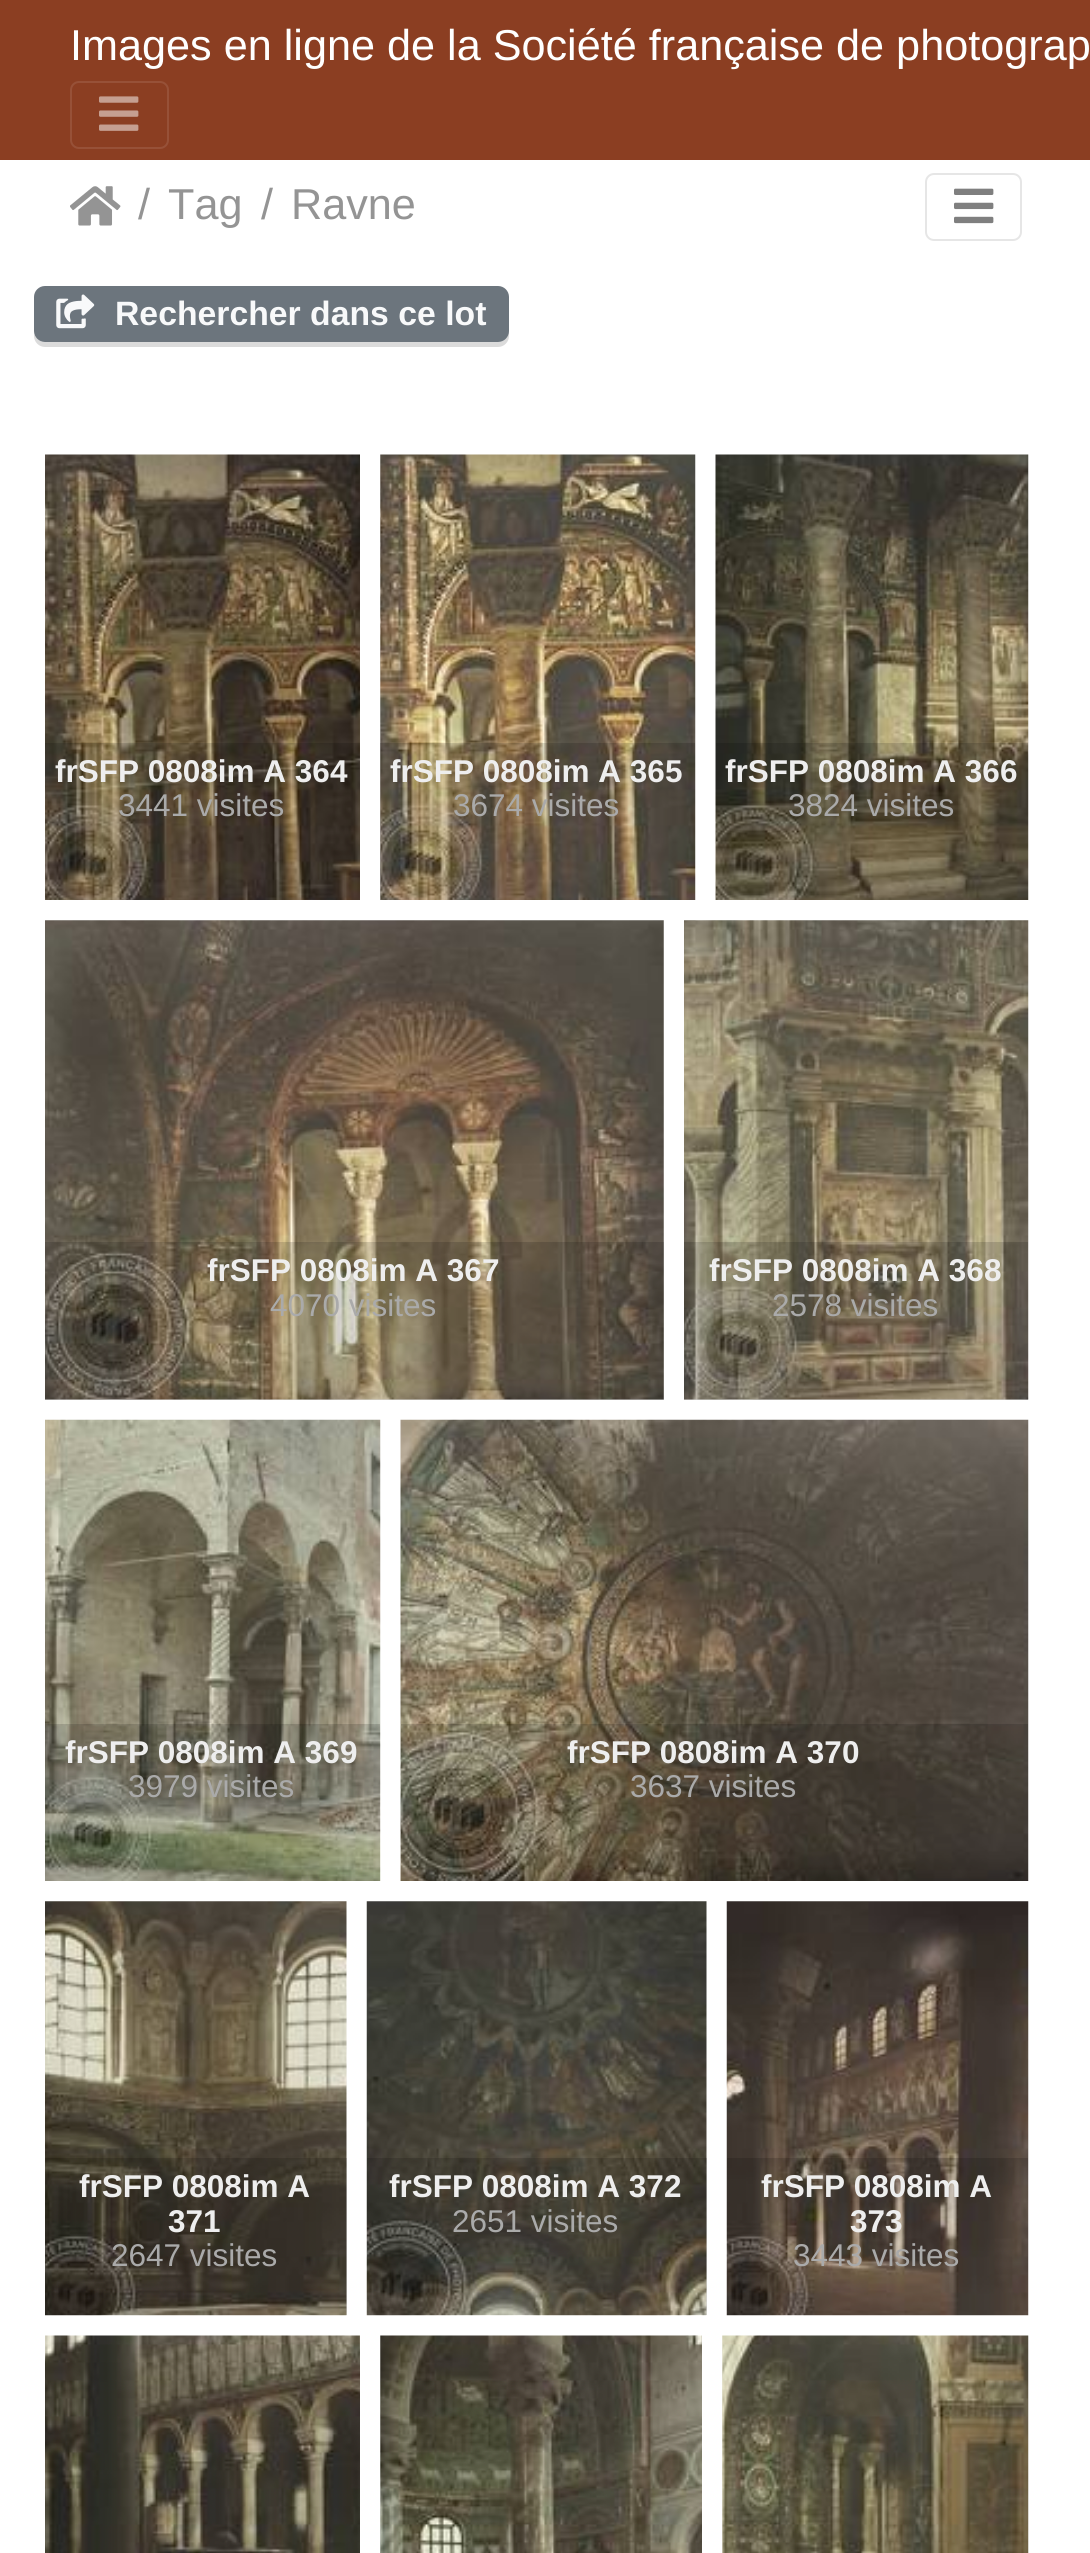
#include <cairo.h>
#include <math.h>
#include <stddef.h>


static void rgb(cairo_t *cr, int r, int g, int b)
{
	cairo_set_source_rgb(cr, r / 255.0, g / 255.0, b / 255.0);
}

static void face(cairo_t *cr, const char *family, double size, int italic, int bold)
{
	cairo_select_font_face(cr, family, italic ? CAIRO_FONT_SLANT_ITALIC : CAIRO_FONT_SLANT_NORMAL,
		bold ? CAIRO_FONT_WEIGHT_BOLD : CAIRO_FONT_WEIGHT_NORMAL);
	cairo_set_font_size(cr, size);
}

static void label(cairo_t *cr, double x, double y, const char *s)
{
	cairo_move_to(cr, x, y);
	cairo_show_text(cr, s);
}

static void rect(cairo_t *cr, double x, double y, double w, double h)
{
	cairo_rectangle(cr, x, y, w, h);
	cairo_fill(cr);
}

static void rrect(cairo_t *cr, double x, double y, double w, double h, double r)
{
	cairo_new_sub_path(cr);
	cairo_arc(cr, x + w - r, y + h - r, r, 0, M_PI / 2);
	cairo_arc(cr, x + r, y + h - r, r, M_PI / 2, M_PI);
	cairo_arc(cr, x + r, y + r, r, M_PI, 1.5 * M_PI);
	cairo_arc(cr, x + w - r, y + r, r, 1.5 * M_PI, 2 * M_PI);
	cairo_close_path(cr);
}

static void image(cairo_t *cr, const char *path, double x, double y, double w, double h)
{
	cairo_surface_t *image = cairo_image_surface_create_from_png(path);
	cairo_save(cr);
	cairo_set_source_surface(cr, image, x, y);
	cairo_rectangle(cr, x, y, w, h);
	cairo_fill(cr);
	cairo_restore(cr);
	cairo_surface_destroy(image);
}

static void draw(cairo_t *cr) {
	rgb(cr, 255, 255, 255);
	cairo_paint(cr);
	rgb(cr, 139, 62, 34);
	rect(cr, 0, 0, 1090, 160);
	face(cr, "Liberation Sans", 43.2, 0, 0);
	rgb(cr, 255, 255, 255);
	label(cr, 70, 60, "Images en ligne de la Société française de photograp");
	rrect(cr, 71, 82, 97, 66, 8);
	rgb(cr, 151, 81, 56);
	cairo_stroke(cr);
	image(cr, "image0.png", 99, 96, 40, 35);
	image(cr, "image1.png", 70, 186, 51, 40);
	rgb(cr, 148, 148, 148);
	label(cr, 138, 219, "/");
	label(cr, 168, 219, "Tag");
	label(cr, 261, 219, "/");
	label(cr, 291, 219, "Ravne");
	rrect(cr, 926, 174, 95, 66, 8);
	rgb(cr, 230, 230, 230);
	cairo_stroke(cr);
	image(cr, "image2.png", 954, 188, 40, 36);
	rgb(cr, 219, 219, 219);
	cairo_new_path(cr);
	cairo_move_to(cr, 34, 333);
	cairo_line_to(cr, 34, 336);
	cairo_curve_to(cr, 34, 342, 39, 347, 45, 347);
	cairo_line_to(cr, 498, 347);
	cairo_curve_to(cr, 504, 347, 509, 342, 509, 336);
	cairo_line_to(cr, 509, 301);
	cairo_line_to(cr, 508, 298);
	cairo_line_to(cr, 508, 331);
	cairo_curve_to(cr, 508, 337, 503, 342, 497, 342);
	cairo_line_to(cr, 45, 342);
	cairo_curve_to(cr, 40, 342, 35, 338, 34, 333);
	cairo_close_path(cr);
	cairo_fill(cr);
	rgb(cr, 108, 117, 125);
	rrect(cr, 34, 286, 475, 56, 11);
	cairo_fill(cr);
	image(cr, "image3.png", 56, 294, 39, 35);
	face(cr, "Liberation Sans", 33.75, 0, 1);
	rgb(cr, 248, 249, 250);
	label(cr, 115, 325, "Rechercher dans ce lot");
	image(cr, "image4.png", 45, 454, 315, 446);
	cairo_set_source_rgba(cr, 0, 0, 0, 0.15);
	rect(cr, 45, 743, 315, 157);
	face(cr, "Liberation Sans", 31.5, 0, 1);
	rgb(cr, 238, 238, 238);
	label(cr, 55, 782, "frSFP 0808im A 364");
	face(cr, "Liberation Sans", 31.5, 0, 0);
	rgb(cr, 170, 170, 170);
	label(cr, 118, 816, "3441 visites");
	image(cr, "image5.png", 380, 454, 316, 446);
	cairo_set_source_rgba(cr, 0, 0, 0, 0.15);
	rect(cr, 380, 743, 315, 157);
	face(cr, "Liberation Sans", 31.5, 0, 1);
	rgb(cr, 238, 238, 238);
	label(cr, 390, 782, "frSFP 0808im A 365");
	face(cr, "Liberation Sans", 31.5, 0, 0);
	rgb(cr, 170, 170, 170);
	label(cr, 453, 816, "3674 visites");
	image(cr, "image6.png", 715, 454, 314, 446);
	cairo_set_source_rgba(cr, 0, 0, 0, 0.15);
	rect(cr, 716, 743, 312, 157);
	face(cr, "Liberation Sans", 31.5, 0, 1);
	rgb(cr, 238, 238, 238);
	label(cr, 725, 782, "frSFP 0808im A 366");
	face(cr, "Liberation Sans", 31.5, 0, 0);
	rgb(cr, 170, 170, 170);
	label(cr, 788, 816, "3824 visites");
	image(cr, "image7.png", 45, 920, 619, 480);
	cairo_set_source_rgba(cr, 0, 0, 0, 0.15);
	rect(cr, 45, 1242, 619, 158);
	face(cr, "Liberation Sans", 31.5, 0, 1);
	rgb(cr, 238, 238, 238);
	label(cr, 207, 1281, "frSFP 0808im A 367");
	face(cr, "Liberation Sans", 31.5, 0, 0);
	rgb(cr, 170, 170, 170);
	label(cr, 270, 1316, "4070 visites");
	image(cr, "image8.png", 684, 920, 345, 480);
	cairo_set_source_rgba(cr, 0, 0, 0, 0.15);
	rect(cr, 684, 1242, 344, 158);
	face(cr, "Liberation Sans", 31.5, 0, 1);
	rgb(cr, 238, 238, 238);
	label(cr, 709, 1281, "frSFP 0808im A 368");
	face(cr, "Liberation Sans", 31.5, 0, 0);
	rgb(cr, 170, 170, 170);
	label(cr, 772, 1316, "2578 visites");
	image(cr, "image9.png", 45, 1419, 336, 462);
	cairo_set_source_rgba(cr, 0, 0, 0, 0.15);
	rect(cr, 45, 1724, 335, 157);
	face(cr, "Liberation Sans", 31.5, 0, 1);
	rgb(cr, 238, 238, 238);
	label(cr, 65, 1763, "frSFP 0808im A 369");
	face(cr, "Liberation Sans", 31.5, 0, 0);
	rgb(cr, 170, 170, 170);
	label(cr, 128, 1797, "3979 visites");
	image(cr, "image10.png", 400, 1419, 629, 462);
	cairo_set_source_rgba(cr, 0, 0, 0, 0.15);
	rect(cr, 401, 1724, 627, 157);
	face(cr, "Liberation Sans", 31.5, 0, 1);
	rgb(cr, 238, 238, 238);
	label(cr, 567, 1763, "frSFP 0808im A 370");
	face(cr, "Liberation Sans", 31.5, 0, 0);
	rgb(cr, 170, 170, 170);
	label(cr, 630, 1797, "3637 visites");
	image(cr, "image11.png", 45, 1901, 302, 415);
	cairo_set_source_rgba(cr, 0, 0, 0, 0.15);
	rect(cr, 45, 2158, 302, 157);
	face(cr, "Liberation Sans", 31.5, 0, 1);
	rgb(cr, 238, 238, 238);
	label(cr, 79, 2197, "frSFP 0808im A");
	label(cr, 168, 2232, "371");
	face(cr, "Liberation Sans", 31.5, 0, 0);
	rgb(cr, 170, 170, 170);
	label(cr, 111, 2266, "2647 visites");
	image(cr, "image12.png", 366, 1901, 341, 415);
	cairo_set_source_rgba(cr, 0, 0, 0, 0.15);
	rect(cr, 367, 2158, 340, 157);
	face(cr, "Liberation Sans", 31.5, 0, 1);
	rgb(cr, 238, 238, 238);
	label(cr, 389, 2197, "frSFP 0808im A 372");
	face(cr, "Liberation Sans", 31.5, 0, 0);
	rgb(cr, 170, 170, 170);
	label(cr, 452, 2232, "2651 visites");
	image(cr, "image13.png", 726, 1901, 303, 415);
	cairo_set_source_rgba(cr, 0, 0, 0, 0.15);
	rect(cr, 727, 2158, 301, 157);
	face(cr, "Liberation Sans", 31.5, 0, 1);
	rgb(cr, 238, 238, 238);
	label(cr, 761, 2197, "frSFP 0808im A");
	label(cr, 850, 2232, "373");
	face(cr, "Liberation Sans", 31.5, 0, 0);
	rgb(cr, 170, 170, 170);
	label(cr, 793, 2266, "3443 visites");
	image(cr, "image14.png", 45, 2335, 315, 218);
	image(cr, "image15.png", 380, 2335, 322, 218);
	image(cr, "image16.png", 722, 2335, 307, 218);
}

int main(void) {
	cairo_surface_t *surface = cairo_image_surface_create(CAIRO_FORMAT_RGB24, 1090, 2553);
	cairo_t *cr = cairo_create(surface);
	cairo_font_options_t *options = cairo_font_options_create();
	cairo_font_options_set_hint_metrics(options, CAIRO_HINT_METRICS_OFF);
	cairo_font_options_set_hint_style(options, CAIRO_HINT_STYLE_NONE);
	cairo_set_font_options(cr, options);
	cairo_set_miter_limit(cr, 4);
	draw(cr);
	cairo_surface_write_to_png(surface, "render.png");
	cairo_font_options_destroy(options);
	cairo_destroy(cr);
	cairo_surface_destroy(surface);
	return 0;
}
